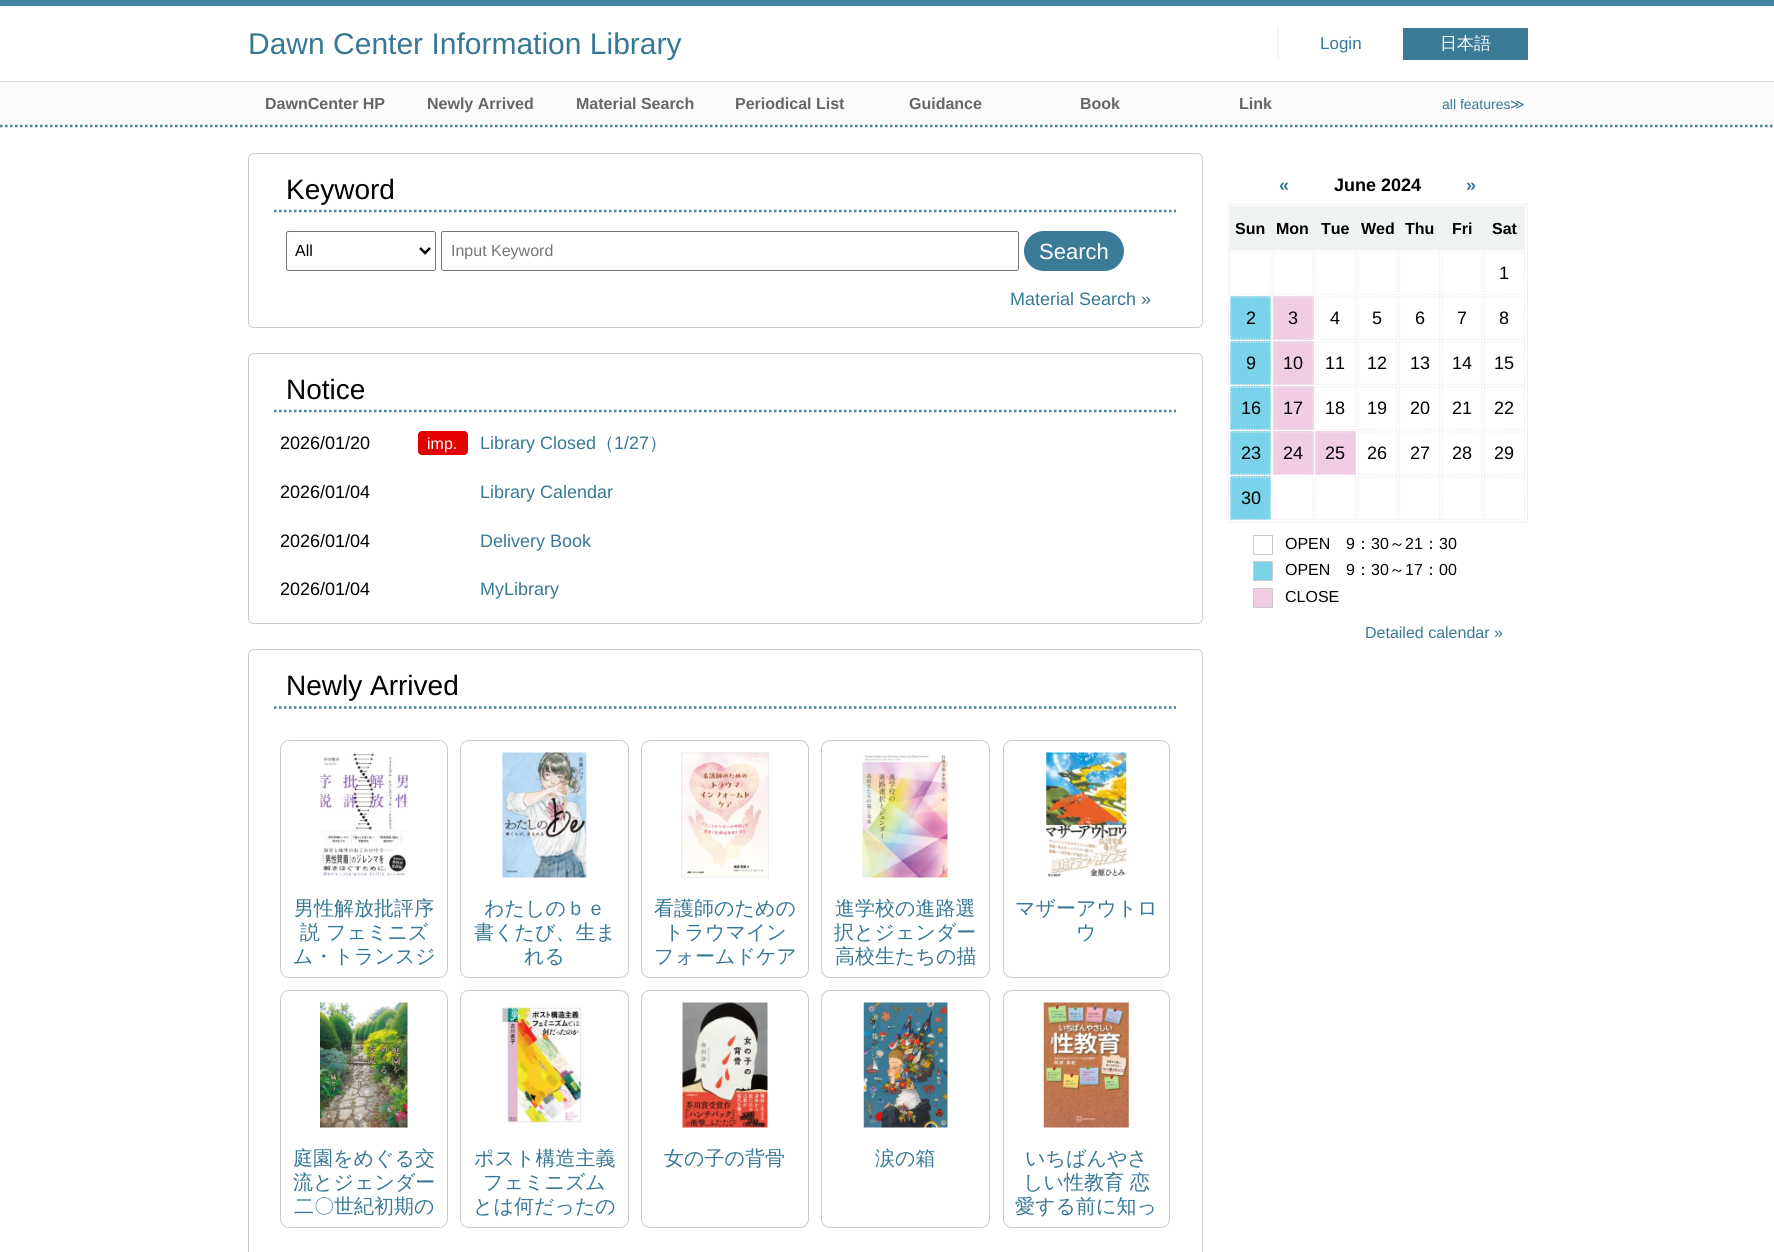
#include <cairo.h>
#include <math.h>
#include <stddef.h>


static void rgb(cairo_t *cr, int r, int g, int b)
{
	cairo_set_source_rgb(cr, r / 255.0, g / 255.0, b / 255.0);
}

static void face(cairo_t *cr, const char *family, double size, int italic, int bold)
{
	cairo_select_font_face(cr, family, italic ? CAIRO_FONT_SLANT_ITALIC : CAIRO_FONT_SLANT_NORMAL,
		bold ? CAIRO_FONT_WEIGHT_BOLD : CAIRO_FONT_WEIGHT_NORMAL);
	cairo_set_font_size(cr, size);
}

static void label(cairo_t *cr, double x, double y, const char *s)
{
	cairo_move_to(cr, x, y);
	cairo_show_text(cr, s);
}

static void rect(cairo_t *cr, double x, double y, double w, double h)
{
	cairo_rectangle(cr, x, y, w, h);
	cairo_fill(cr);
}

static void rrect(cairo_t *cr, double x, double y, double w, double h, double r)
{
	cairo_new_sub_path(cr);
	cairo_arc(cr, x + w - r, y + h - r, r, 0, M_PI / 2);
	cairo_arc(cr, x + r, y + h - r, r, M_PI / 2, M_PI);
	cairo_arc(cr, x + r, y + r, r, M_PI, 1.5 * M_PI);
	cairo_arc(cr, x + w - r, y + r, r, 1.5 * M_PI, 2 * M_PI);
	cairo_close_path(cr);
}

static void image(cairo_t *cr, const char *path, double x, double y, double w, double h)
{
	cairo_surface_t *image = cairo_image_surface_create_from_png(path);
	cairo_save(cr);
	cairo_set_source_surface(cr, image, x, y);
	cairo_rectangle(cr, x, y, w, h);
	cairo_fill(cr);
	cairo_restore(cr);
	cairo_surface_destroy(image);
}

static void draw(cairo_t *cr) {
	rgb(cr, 255, 255, 255);
	cairo_paint(cr);
	rgb(cr, 69, 131, 161);
	rect(cr, 0, 0, 1774, 6);
	face(cr, "Liberation Sans", 30, 0, 0);
	rgb(cr, 56, 120, 149);
	label(cr, 248, 54, "Dawn Center Information Library");
	cairo_new_path(cr);
	cairo_move_to(cr, 1278, 27.5);
	cairo_line_to(cr, 1278, 60);
	rgb(cr, 221, 221, 221);
	cairo_set_line_width(cr, 1.2);
	cairo_set_dash(cr, (double[]){1.25, 1.25}, 2, 0);
	cairo_stroke(cr);
	face(cr, "Liberation Sans", 17, 0, 0);
	rgb(cr, 56, 120, 149);
	label(cr, 1320, 49, "Login");
	rgb(cr, 60, 123, 151);
	rect(cr, 1403, 28, 125, 32);
	face(cr, "WenQuanYi Zen Hei Medium", 17, 0, 0);
	rgb(cr, 255, 255, 255);
	label(cr, 1440, 49, "日本語");
	rgb(cr, 251, 251, 251);
	rect(cr, 0, 82, 1774, 43);
	rgb(cr, 221, 221, 221);
	rect(cr, 0, 81, 1774, 1);
	face(cr, "Liberation Sans", 16, 0, 1);
	rgb(cr, 102, 102, 102);
	label(cr, 265, 109, "DawnCenter HP");
	label(cr, 427, 109, "Newly Arrived");
	label(cr, 576, 109, "Material Search");
	label(cr, 735, 109, "Periodical List");
	label(cr, 909, 109, "Guidance");
	label(cr, 1080, 109, "Book");
	label(cr, 1239, 109, "Link");
	face(cr, "Liberation Sans", 14, 0, 0);
	rgb(cr, 56, 120, 149);
	label(cr, 1442, 109, "all features");
	face(cr, "DejaVu Sans", 14, 0, 0);
	label(cr, 1510, 109, "≫");
	cairo_new_path(cr);
	cairo_move_to(cr, 0, 126);
	cairo_line_to(cr, 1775, 126);
	rgb(cr, 69, 131, 161);
	cairo_set_line_width(cr, 2.5);
	cairo_set_dash(cr, (double[]){2.5, 2.5}, 2, 0);
	cairo_stroke(cr);
	rgb(cr, 159, 159, 159);
	cairo_new_path(cr);
	cairo_move_to(cr, 0, 127.5);
	cairo_line_to(cr, 0, 125);
	cairo_line_to(cr, 1, 127.5);
	cairo_close_path(cr);
	cairo_fill(cr);
	rrect(cr, 248.5, 153.5, 954, 174, 5.5);
	rgb(cr, 204, 204, 204);
	cairo_set_line_width(cr, 1);
	cairo_set_dash(cr, NULL, 0, 0);
	cairo_stroke(cr);
	cairo_new_path(cr);
	cairo_move_to(cr, 274, 211);
	cairo_line_to(cr, 1176, 211);
	rgb(cr, 69, 132, 162);
	cairo_set_line_width(cr, 2.5);
	cairo_set_dash(cr, (double[]){2.5, 2.5}, 2, 0);
	cairo_stroke(cr);
	face(cr, "Liberation Sans", 28, 0, 0);
	rgb(cr, 0, 0, 0);
	label(cr, 286, 199, "Keyword");
	rrect(cr, 286.5, 231.5, 149, 39, 2);
	rgb(cr, 118, 118, 118);
	cairo_set_line_width(cr, 1);
	cairo_set_dash(cr, NULL, 0, 0);
	cairo_stroke(cr);
	cairo_new_path(cr);
	cairo_move_to(cr, 420, 248);
	cairo_line_to(cr, 425, 253);
	cairo_line_to(cr, 430, 248);
	rgb(cr, 0, 0, 0);
	cairo_set_line_width(cr, 2.5);
	cairo_stroke(cr);
	face(cr, "Liberation Sans", 16, 0, 0);
	label(cr, 295, 256, "All");
	rrect(cr, 441.5, 231.5, 577, 39, 2);
	rgb(cr, 118, 118, 118);
	cairo_set_line_width(cr, 1);
	cairo_stroke(cr);
	rgb(cr, 117, 117, 117);
	label(cr, 451, 256, "Input Keyword");
	rgb(cr, 60, 123, 151);
	rrect(cr, 1024, 231, 100, 40, 20);
	cairo_fill(cr);
	face(cr, "Liberation Sans", 22, 0, 0);
	rgb(cr, 255, 255, 255);
	label(cr, 1039, 259, "Search");
	face(cr, "Liberation Sans", 18, 0, 0);
	rgb(cr, 56, 120, 149);
	label(cr, 1010, 305, "Material Search »");
	rrect(cr, 248.5, 353.5, 954, 270, 5.5);
	rgb(cr, 204, 204, 204);
	cairo_stroke(cr);
	cairo_new_path(cr);
	cairo_move_to(cr, 274, 411);
	cairo_line_to(cr, 1176, 411);
	rgb(cr, 69, 132, 162);
	cairo_set_line_width(cr, 2.5);
	cairo_set_dash(cr, (double[]){2.5, 2.5}, 2, 0);
	cairo_stroke(cr);
	face(cr, "Liberation Sans", 28, 0, 0);
	rgb(cr, 0, 0, 0);
	label(cr, 286, 399, "Notice");
	face(cr, "Liberation Sans", 18, 0, 0);
	label(cr, 280, 449, "2026/01/20");
	rgb(cr, 229, 0, 0);
	rrect(cr, 418, 431, 50, 24, 4);
	cairo_fill(cr);
	face(cr, "Liberation Sans", 16, 0, 0);
	rgb(cr, 255, 255, 255);
	label(cr, 427, 449, "imp.");
	face(cr, "Liberation Sans", 18, 0, 0);
	rgb(cr, 56, 120, 149);
	label(cr, 480, 449, "Library Closed");
	face(cr, "WenQuanYi Zen Hei Medium", 18, 0, 0);
	label(cr, 596, 449, "（");
	face(cr, "Liberation Sans", 18, 0, 0);
	label(cr, 614, 449, "1/27");
	face(cr, "WenQuanYi Zen Hei Medium", 18, 0, 0);
	label(cr, 649, 449, "）");
	face(cr, "Liberation Sans", 18, 0, 0);
	rgb(cr, 0, 0, 0);
	label(cr, 280, 498, "2026/01/04");
	rgb(cr, 56, 120, 149);
	label(cr, 480, 498, "Library Calendar");
	rgb(cr, 0, 0, 0);
	label(cr, 280, 547, "2026/01/04");
	rgb(cr, 56, 120, 149);
	label(cr, 480, 547, "Delivery Book");
	rgb(cr, 0, 0, 0);
	label(cr, 280, 595, "2026/01/04");
	rgb(cr, 56, 120, 149);
	label(cr, 480, 595, "MyLibrary");
	rrect(cr, 248.5, 649.5, 954, 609, 5.5);
	rgb(cr, 204, 204, 204);
	cairo_set_line_width(cr, 1);
	cairo_set_dash(cr, NULL, 0, 0);
	cairo_stroke(cr);
	cairo_new_path(cr);
	cairo_move_to(cr, 274, 707.5);
	cairo_line_to(cr, 1176, 707.5);
	rgb(cr, 69, 132, 162);
	cairo_set_line_width(cr, 2.5);
	cairo_set_dash(cr, (double[]){2.5, 2.5}, 2, 0);
	cairo_stroke(cr);
	face(cr, "Liberation Sans", 28, 0, 0);
	rgb(cr, 0, 0, 0);
	label(cr, 286, 695, "Newly Arrived");
	rrect(cr, 280.5, 740.5, 167, 237, 8.5);
	rgb(cr, 204, 204, 204);
	cairo_set_line_width(cr, 1);
	cairo_set_dash(cr, NULL, 0, 0);
	cairo_stroke(cr);
	image(cr, "image0.png", 320, 752, 88, 125);
	face(cr, "WenQuanYi Zen Hei Medium", 20, 0, 0);
	rgb(cr, 56, 120, 149);
	label(cr, 294, 915, "男性解放批評序");
	label(cr, 300, 939, "説 フェミニズ");
	label(cr, 293, 963, "ム・トランスジ");
	rrect(cr, 460.5, 740.5, 168, 237, 8.5);
	rgb(cr, 204, 204, 204);
	cairo_stroke(cr);
	image(cr, "image1.png", 502, 752, 85, 126);
	rgb(cr, 56, 120, 149);
	label(cr, 484, 915, "わたしのｂｅ");
	label(cr, 474, 939, "書くたび、生ま");
	label(cr, 524, 963, "れる");
	rrect(cr, 641.5, 740.5, 167, 237, 8.5);
	rgb(cr, 204, 204, 204);
	cairo_stroke(cr);
	image(cr, "image2.png", 681, 752, 88, 126);
	rgb(cr, 56, 120, 149);
	label(cr, 654, 915, "看護師のための");
	label(cr, 664, 939, "トラウマイン");
	label(cr, 654, 963, "フォームドケア");
	rrect(cr, 821.5, 740.5, 168, 237, 8.5);
	rgb(cr, 204, 204, 204);
	cairo_stroke(cr);
	image(cr, "image3.png", 862, 755, 86, 123);
	rgb(cr, 56, 120, 149);
	label(cr, 835, 915, "進学校の進路選");
	label(cr, 834, 939, "択とジェンダー");
	label(cr, 835, 963, "高校生たちの描");
	rrect(cr, 1003.5, 740.5, 166, 237, 8.5);
	rgb(cr, 204, 204, 204);
	cairo_stroke(cr);
	image(cr, "image4.png", 1046, 752, 81, 126);
	rgb(cr, 56, 120, 149);
	label(cr, 1015, 915, "マザーアウトロ");
	label(cr, 1076, 939, "ウ");
	rrect(cr, 280.5, 990.5, 167, 237, 8.5);
	rgb(cr, 204, 204, 204);
	cairo_stroke(cr);
	image(cr, "image5.png", 320, 1002, 88, 126);
	rgb(cr, 56, 120, 149);
	label(cr, 293, 1165, "庭園をめぐる交");
	label(cr, 293, 1189, "流とジェンダー");
	label(cr, 294, 1213, "二〇世紀初期の");
	rrect(cr, 460.5, 990.5, 168, 237, 8.5);
	rgb(cr, 204, 204, 204);
	cairo_stroke(cr);
	image(cr, "image6.png", 502, 1002, 81, 121);
	rgb(cr, 56, 120, 149);
	label(cr, 474, 1165, "ポスト構造主義");
	label(cr, 483, 1189, "フェミニズム");
	label(cr, 473, 1213, "とは何だったの");
	rrect(cr, 641.5, 990.5, 167, 237, 8.5);
	rgb(cr, 204, 204, 204);
	cairo_stroke(cr);
	image(cr, "image7.png", 682, 1002, 86, 126);
	rgb(cr, 56, 120, 149);
	label(cr, 664, 1165, "女の子の背骨");
	rrect(cr, 821.5, 990.5, 168, 237, 8.5);
	rgb(cr, 204, 204, 204);
	cairo_stroke(cr);
	image(cr, "image8.png", 863, 1002, 85, 126);
	rgb(cr, 56, 120, 149);
	label(cr, 875, 1165, "涙の箱");
	rrect(cr, 1003.5, 990.5, 166, 237, 8.5);
	rgb(cr, 204, 204, 204);
	cairo_stroke(cr);
	image(cr, "image9.png", 1043, 1002, 86, 126);
	rgb(cr, 56, 120, 149);
	label(cr, 1025, 1165, "いちばんやさ");
	label(cr, 1023, 1189, "しい性教育 恋");
	label(cr, 1015, 1213, "愛する前に知っ");
	face(cr, "Liberation Sans", 18, 0, 1);
	label(cr, 1279, 191, "«");
	rgb(cr, 0, 0, 0);
	label(cr, 1334, 191, "June 2024");
	rgb(cr, 56, 120, 149);
	label(cr, 1466, 191, "»");
	cairo_rectangle(cr, 1228.5, 204.5, 299, 318);
	rgb(cr, 240, 243, 244);
	cairo_stroke(cr);
	rect(cr, 1230, 206, 295, 44);
	cairo_new_path(cr);
	cairo_move_to(cr, 1230, 207);
	cairo_line_to(cr, 1271, 207);
	cairo_move_to(cr, 1270.5, 206);
	cairo_line_to(cr, 1270.5, 250);
	cairo_move_to(cr, 1230, 249.5);
	cairo_line_to(cr, 1271, 249.5);
	cairo_move_to(cr, 1230.5, 206);
	cairo_line_to(cr, 1230.5, 250);
	rgb(cr, 238, 238, 238);
	cairo_set_line_width(cr, 1.2);
	cairo_set_dash(cr, (double[]){1.25, 1.25}, 2, 0);
	cairo_stroke(cr);
	face(cr, "Liberation Sans", 16, 0, 1);
	rgb(cr, 0, 0, 0);
	label(cr, 1235, 234, "Sun");
	cairo_new_path(cr);
	cairo_move_to(cr, 1272.5, 207);
	cairo_line_to(cr, 1314, 207);
	cairo_move_to(cr, 1313, 206);
	cairo_line_to(cr, 1313, 250);
	cairo_move_to(cr, 1272.5, 249.5);
	cairo_line_to(cr, 1314, 249.5);
	cairo_move_to(cr, 1273, 206);
	cairo_line_to(cr, 1273, 250);
	rgb(cr, 238, 238, 238);
	cairo_stroke(cr);
	rgb(cr, 0, 0, 0);
	label(cr, 1276, 234, "Mon");
	cairo_new_path(cr);
	cairo_move_to(cr, 1315, 207);
	cairo_line_to(cr, 1356, 207);
	cairo_move_to(cr, 1355.5, 206);
	cairo_line_to(cr, 1355.5, 250);
	cairo_move_to(cr, 1315, 249.5);
	cairo_line_to(cr, 1356, 249.5);
	cairo_move_to(cr, 1315.5, 206);
	cairo_line_to(cr, 1315.5, 250);
	rgb(cr, 238, 238, 238);
	cairo_stroke(cr);
	rgb(cr, 0, 0, 0);
	label(cr, 1321, 234, "Tue");
	cairo_new_path(cr);
	cairo_move_to(cr, 1357.5, 207);
	cairo_line_to(cr, 1397.5, 207);
	cairo_move_to(cr, 1397, 206);
	cairo_line_to(cr, 1397, 250);
	cairo_move_to(cr, 1357.5, 249.5);
	cairo_line_to(cr, 1397.5, 249.5);
	cairo_move_to(cr, 1358, 206);
	cairo_line_to(cr, 1358, 250);
	rgb(cr, 238, 238, 238);
	cairo_stroke(cr);
	rgb(cr, 0, 0, 0);
	label(cr, 1361, 234, "Wed");
	cairo_new_path(cr);
	cairo_move_to(cr, 1399, 207);
	cairo_line_to(cr, 1440, 207);
	cairo_move_to(cr, 1439.5, 206);
	cairo_line_to(cr, 1439.5, 250);
	cairo_move_to(cr, 1399, 249.5);
	cairo_line_to(cr, 1440, 249.5);
	cairo_move_to(cr, 1399.5, 206);
	cairo_line_to(cr, 1399.5, 250);
	rgb(cr, 238, 238, 238);
	cairo_stroke(cr);
	rgb(cr, 0, 0, 0);
	label(cr, 1405, 234, "Thu");
	cairo_new_path(cr);
	cairo_move_to(cr, 1441, 207);
	cairo_line_to(cr, 1482.5, 207);
	cairo_move_to(cr, 1482, 206);
	cairo_line_to(cr, 1482, 250);
	cairo_move_to(cr, 1441, 249.5);
	cairo_line_to(cr, 1482.5, 249.5);
	cairo_move_to(cr, 1442, 206);
	cairo_line_to(cr, 1442, 250);
	rgb(cr, 238, 238, 238);
	cairo_stroke(cr);
	rgb(cr, 0, 0, 0);
	label(cr, 1452, 234, "Fri");
	cairo_new_path(cr);
	cairo_move_to(cr, 1484, 207);
	cairo_line_to(cr, 1525, 207);
	cairo_move_to(cr, 1524.5, 206);
	cairo_line_to(cr, 1524.5, 250);
	cairo_move_to(cr, 1484, 249.5);
	cairo_line_to(cr, 1525, 249.5);
	cairo_move_to(cr, 1484.5, 206);
	cairo_line_to(cr, 1484.5, 250);
	rgb(cr, 238, 238, 238);
	cairo_stroke(cr);
	rgb(cr, 0, 0, 0);
	label(cr, 1492, 234, "Sat");
	cairo_new_path(cr);
	cairo_move_to(cr, 1230, 252);
	cairo_line_to(cr, 1271, 252);
	cairo_move_to(cr, 1270.5, 251);
	cairo_line_to(cr, 1270.5, 295);
	cairo_move_to(cr, 1230, 294.5);
	cairo_line_to(cr, 1271, 294.5);
	cairo_move_to(cr, 1230.5, 251);
	cairo_line_to(cr, 1230.5, 295);
	rgb(cr, 238, 238, 238);
	cairo_stroke(cr);
	cairo_new_path(cr);
	cairo_move_to(cr, 1272.5, 252);
	cairo_line_to(cr, 1314, 252);
	cairo_move_to(cr, 1313, 251);
	cairo_line_to(cr, 1313, 295);
	cairo_move_to(cr, 1272.5, 294.5);
	cairo_line_to(cr, 1314, 294.5);
	cairo_move_to(cr, 1273, 251);
	cairo_line_to(cr, 1273, 295);
	cairo_stroke(cr);
	cairo_new_path(cr);
	cairo_move_to(cr, 1315, 252);
	cairo_line_to(cr, 1356, 252);
	cairo_move_to(cr, 1355.5, 251);
	cairo_line_to(cr, 1355.5, 295);
	cairo_move_to(cr, 1315, 294.5);
	cairo_line_to(cr, 1356, 294.5);
	cairo_move_to(cr, 1315.5, 251);
	cairo_line_to(cr, 1315.5, 295);
	cairo_stroke(cr);
	cairo_new_path(cr);
	cairo_move_to(cr, 1357.5, 252);
	cairo_line_to(cr, 1397.5, 252);
	cairo_move_to(cr, 1397, 251);
	cairo_line_to(cr, 1397, 295);
	cairo_move_to(cr, 1357.5, 294.5);
	cairo_line_to(cr, 1397.5, 294.5);
	cairo_move_to(cr, 1358, 251);
	cairo_line_to(cr, 1358, 295);
	cairo_stroke(cr);
	cairo_new_path(cr);
	cairo_move_to(cr, 1399, 252);
	cairo_line_to(cr, 1440, 252);
	cairo_move_to(cr, 1439.5, 251);
	cairo_line_to(cr, 1439.5, 295);
	cairo_move_to(cr, 1399, 294.5);
	cairo_line_to(cr, 1440, 294.5);
	cairo_move_to(cr, 1399.5, 251);
	cairo_line_to(cr, 1399.5, 295);
	cairo_stroke(cr);
	cairo_new_path(cr);
	cairo_move_to(cr, 1441, 252);
	cairo_line_to(cr, 1482.5, 252);
	cairo_move_to(cr, 1482, 251);
	cairo_line_to(cr, 1482, 295);
	cairo_move_to(cr, 1441, 294.5);
	cairo_line_to(cr, 1482.5, 294.5);
	cairo_move_to(cr, 1442, 251);
	cairo_line_to(cr, 1442, 295);
	cairo_stroke(cr);
	cairo_new_path(cr);
	cairo_move_to(cr, 1484, 252);
	cairo_line_to(cr, 1525, 252);
	cairo_move_to(cr, 1524.5, 251);
	cairo_line_to(cr, 1524.5, 295);
	cairo_move_to(cr, 1484, 294.5);
	cairo_line_to(cr, 1525, 294.5);
	cairo_move_to(cr, 1484.5, 251);
	cairo_line_to(cr, 1484.5, 295);
	cairo_stroke(cr);
	face(cr, "Liberation Sans", 18, 0, 0);
	rgb(cr, 0, 0, 0);
	label(cr, 1499, 279, "1");
	rgb(cr, 122, 210, 235);
	rect(cr, 1230, 296, 41, 44);
	cairo_new_path(cr);
	cairo_move_to(cr, 1230, 297);
	cairo_line_to(cr, 1271, 297);
	cairo_move_to(cr, 1270.5, 296);
	cairo_line_to(cr, 1270.5, 340);
	cairo_move_to(cr, 1230, 339.5);
	cairo_line_to(cr, 1271, 339.5);
	cairo_move_to(cr, 1230.5, 296);
	cairo_line_to(cr, 1230.5, 340);
	rgb(cr, 238, 238, 238);
	cairo_stroke(cr);
	rgb(cr, 0, 0, 0);
	label(cr, 1246, 324, "2");
	rgb(cr, 241, 205, 228);
	rect(cr, 1273, 296, 41, 44);
	cairo_new_path(cr);
	cairo_move_to(cr, 1272.5, 297);
	cairo_line_to(cr, 1314, 297);
	cairo_move_to(cr, 1313, 296);
	cairo_line_to(cr, 1313, 340);
	cairo_move_to(cr, 1272.5, 339.5);
	cairo_line_to(cr, 1314, 339.5);
	cairo_move_to(cr, 1273, 296);
	cairo_line_to(cr, 1273, 340);
	rgb(cr, 238, 238, 238);
	cairo_stroke(cr);
	rgb(cr, 0, 0, 0);
	label(cr, 1288, 324, "3");
	cairo_new_path(cr);
	cairo_move_to(cr, 1315, 297);
	cairo_line_to(cr, 1356, 297);
	cairo_move_to(cr, 1355.5, 296);
	cairo_line_to(cr, 1355.5, 340);
	cairo_move_to(cr, 1315, 339.5);
	cairo_line_to(cr, 1356, 339.5);
	cairo_move_to(cr, 1315.5, 296);
	cairo_line_to(cr, 1315.5, 340);
	rgb(cr, 238, 238, 238);
	cairo_stroke(cr);
	rgb(cr, 0, 0, 0);
	label(cr, 1330, 324, "4");
	cairo_new_path(cr);
	cairo_move_to(cr, 1357.5, 297);
	cairo_line_to(cr, 1397.5, 297);
	cairo_move_to(cr, 1397, 296);
	cairo_line_to(cr, 1397, 340);
	cairo_move_to(cr, 1357.5, 339.5);
	cairo_line_to(cr, 1397.5, 339.5);
	cairo_move_to(cr, 1358, 296);
	cairo_line_to(cr, 1358, 340);
	rgb(cr, 238, 238, 238);
	cairo_stroke(cr);
	rgb(cr, 0, 0, 0);
	label(cr, 1372, 324, "5");
	cairo_new_path(cr);
	cairo_move_to(cr, 1399, 297);
	cairo_line_to(cr, 1440, 297);
	cairo_move_to(cr, 1439.5, 296);
	cairo_line_to(cr, 1439.5, 340);
	cairo_move_to(cr, 1399, 339.5);
	cairo_line_to(cr, 1440, 339.5);
	cairo_move_to(cr, 1399.5, 296);
	cairo_line_to(cr, 1399.5, 340);
	rgb(cr, 238, 238, 238);
	cairo_stroke(cr);
	rgb(cr, 0, 0, 0);
	label(cr, 1415, 324, "6");
	cairo_new_path(cr);
	cairo_move_to(cr, 1441, 297);
	cairo_line_to(cr, 1482.5, 297);
	cairo_move_to(cr, 1482, 296);
	cairo_line_to(cr, 1482, 340);
	cairo_move_to(cr, 1441, 339.5);
	cairo_line_to(cr, 1482.5, 339.5);
	cairo_move_to(cr, 1442, 296);
	cairo_line_to(cr, 1442, 340);
	rgb(cr, 238, 238, 238);
	cairo_stroke(cr);
	rgb(cr, 0, 0, 0);
	label(cr, 1457, 324, "7");
	cairo_new_path(cr);
	cairo_move_to(cr, 1484, 297);
	cairo_line_to(cr, 1525, 297);
	cairo_move_to(cr, 1524.5, 296);
	cairo_line_to(cr, 1524.5, 340);
	cairo_move_to(cr, 1484, 339.5);
	cairo_line_to(cr, 1525, 339.5);
	cairo_move_to(cr, 1484.5, 296);
	cairo_line_to(cr, 1484.5, 340);
	rgb(cr, 238, 238, 238);
	cairo_stroke(cr);
	rgb(cr, 0, 0, 0);
	label(cr, 1499, 324, "8");
	rgb(cr, 122, 210, 235);
	rect(cr, 1230, 341, 41, 44);
	cairo_new_path(cr);
	cairo_move_to(cr, 1230, 342);
	cairo_line_to(cr, 1271, 342);
	cairo_move_to(cr, 1270.5, 341);
	cairo_line_to(cr, 1270.5, 385);
	cairo_move_to(cr, 1230, 384.5);
	cairo_line_to(cr, 1271, 384.5);
	cairo_move_to(cr, 1230.5, 341);
	cairo_line_to(cr, 1230.5, 385);
	rgb(cr, 238, 238, 238);
	cairo_stroke(cr);
	rgb(cr, 0, 0, 0);
	label(cr, 1246, 369, "9");
	rgb(cr, 241, 205, 228);
	rect(cr, 1273, 341, 41, 44);
	cairo_new_path(cr);
	cairo_move_to(cr, 1272.5, 342);
	cairo_line_to(cr, 1314, 342);
	cairo_move_to(cr, 1313, 341);
	cairo_line_to(cr, 1313, 385);
	cairo_move_to(cr, 1272.5, 384.5);
	cairo_line_to(cr, 1314, 384.5);
	cairo_move_to(cr, 1273, 341);
	cairo_line_to(cr, 1273, 385);
	rgb(cr, 238, 238, 238);
	cairo_stroke(cr);
	rgb(cr, 0, 0, 0);
	label(cr, 1283, 369, "10");
	cairo_new_path(cr);
	cairo_move_to(cr, 1315, 342);
	cairo_line_to(cr, 1356, 342);
	cairo_move_to(cr, 1355.5, 341);
	cairo_line_to(cr, 1355.5, 385);
	cairo_move_to(cr, 1315, 384.5);
	cairo_line_to(cr, 1356, 384.5);
	cairo_move_to(cr, 1315.5, 341);
	cairo_line_to(cr, 1315.5, 385);
	rgb(cr, 238, 238, 238);
	cairo_stroke(cr);
	rgb(cr, 0, 0, 0);
	label(cr, 1325, 369, "11");
	cairo_new_path(cr);
	cairo_move_to(cr, 1357.5, 342);
	cairo_line_to(cr, 1397.5, 342);
	cairo_move_to(cr, 1397, 341);
	cairo_line_to(cr, 1397, 385);
	cairo_move_to(cr, 1357.5, 384.5);
	cairo_line_to(cr, 1397.5, 384.5);
	cairo_move_to(cr, 1358, 341);
	cairo_line_to(cr, 1358, 385);
	rgb(cr, 238, 238, 238);
	cairo_stroke(cr);
	rgb(cr, 0, 0, 0);
	label(cr, 1367, 369, "12");
	cairo_new_path(cr);
	cairo_move_to(cr, 1399, 342);
	cairo_line_to(cr, 1440, 342);
	cairo_move_to(cr, 1439.5, 341);
	cairo_line_to(cr, 1439.5, 385);
	cairo_move_to(cr, 1399, 384.5);
	cairo_line_to(cr, 1440, 384.5);
	cairo_move_to(cr, 1399.5, 341);
	cairo_line_to(cr, 1399.5, 385);
	rgb(cr, 238, 238, 238);
	cairo_stroke(cr);
	rgb(cr, 0, 0, 0);
	label(cr, 1410, 369, "13");
	cairo_new_path(cr);
	cairo_move_to(cr, 1441, 342);
	cairo_line_to(cr, 1482.5, 342);
	cairo_move_to(cr, 1482, 341);
	cairo_line_to(cr, 1482, 385);
	cairo_move_to(cr, 1441, 384.5);
	cairo_line_to(cr, 1482.5, 384.5);
	cairo_move_to(cr, 1442, 341);
	cairo_line_to(cr, 1442, 385);
	rgb(cr, 238, 238, 238);
	cairo_stroke(cr);
	rgb(cr, 0, 0, 0);
	label(cr, 1452, 369, "14");
	cairo_new_path(cr);
	cairo_move_to(cr, 1484, 342);
	cairo_line_to(cr, 1525, 342);
	cairo_move_to(cr, 1524.5, 341);
	cairo_line_to(cr, 1524.5, 385);
	cairo_move_to(cr, 1484, 384.5);
	cairo_line_to(cr, 1525, 384.5);
	cairo_move_to(cr, 1484.5, 341);
	cairo_line_to(cr, 1484.5, 385);
	rgb(cr, 238, 238, 238);
	cairo_stroke(cr);
	rgb(cr, 0, 0, 0);
	label(cr, 1494, 369, "15");
	rgb(cr, 122, 210, 235);
	rect(cr, 1230, 386, 41, 44);
	cairo_new_path(cr);
	cairo_move_to(cr, 1230, 387);
	cairo_line_to(cr, 1271, 387);
	cairo_move_to(cr, 1270.5, 386);
	cairo_line_to(cr, 1270.5, 430);
	cairo_move_to(cr, 1230, 429.5);
	cairo_line_to(cr, 1271, 429.5);
	cairo_move_to(cr, 1230.5, 386);
	cairo_line_to(cr, 1230.5, 430);
	rgb(cr, 238, 238, 238);
	cairo_stroke(cr);
	rgb(cr, 0, 0, 0);
	label(cr, 1241, 414, "16");
	rgb(cr, 241, 205, 228);
	rect(cr, 1273, 386, 41, 44);
	cairo_new_path(cr);
	cairo_move_to(cr, 1272.5, 387);
	cairo_line_to(cr, 1314, 387);
	cairo_move_to(cr, 1313, 386);
	cairo_line_to(cr, 1313, 430);
	cairo_move_to(cr, 1272.5, 429.5);
	cairo_line_to(cr, 1314, 429.5);
	cairo_move_to(cr, 1273, 386);
	cairo_line_to(cr, 1273, 430);
	rgb(cr, 238, 238, 238);
	cairo_stroke(cr);
	rgb(cr, 0, 0, 0);
	label(cr, 1283, 414, "17");
	cairo_new_path(cr);
	cairo_move_to(cr, 1315, 387);
	cairo_line_to(cr, 1356, 387);
	cairo_move_to(cr, 1355.5, 386);
	cairo_line_to(cr, 1355.5, 430);
	cairo_move_to(cr, 1315, 429.5);
	cairo_line_to(cr, 1356, 429.5);
	cairo_move_to(cr, 1315.5, 386);
	cairo_line_to(cr, 1315.5, 430);
	rgb(cr, 238, 238, 238);
	cairo_stroke(cr);
	rgb(cr, 0, 0, 0);
	label(cr, 1325, 414, "18");
	cairo_new_path(cr);
	cairo_move_to(cr, 1357.5, 387);
	cairo_line_to(cr, 1397.5, 387);
	cairo_move_to(cr, 1397, 386);
	cairo_line_to(cr, 1397, 430);
	cairo_move_to(cr, 1357.5, 429.5);
	cairo_line_to(cr, 1397.5, 429.5);
	cairo_move_to(cr, 1358, 386);
	cairo_line_to(cr, 1358, 430);
	rgb(cr, 238, 238, 238);
	cairo_stroke(cr);
	rgb(cr, 0, 0, 0);
	label(cr, 1367, 414, "19");
	cairo_new_path(cr);
	cairo_move_to(cr, 1399, 387);
	cairo_line_to(cr, 1440, 387);
	cairo_move_to(cr, 1439.5, 386);
	cairo_line_to(cr, 1439.5, 430);
	cairo_move_to(cr, 1399, 429.5);
	cairo_line_to(cr, 1440, 429.5);
	cairo_move_to(cr, 1399.5, 386);
	cairo_line_to(cr, 1399.5, 430);
	rgb(cr, 238, 238, 238);
	cairo_stroke(cr);
	rgb(cr, 0, 0, 0);
	label(cr, 1410, 414, "20");
	cairo_new_path(cr);
	cairo_move_to(cr, 1441, 387);
	cairo_line_to(cr, 1482.5, 387);
	cairo_move_to(cr, 1482, 386);
	cairo_line_to(cr, 1482, 430);
	cairo_move_to(cr, 1441, 429.5);
	cairo_line_to(cr, 1482.5, 429.5);
	cairo_move_to(cr, 1442, 386);
	cairo_line_to(cr, 1442, 430);
	rgb(cr, 238, 238, 238);
	cairo_stroke(cr);
	rgb(cr, 0, 0, 0);
	label(cr, 1452, 414, "21");
	cairo_new_path(cr);
	cairo_move_to(cr, 1484, 387);
	cairo_line_to(cr, 1525, 387);
	cairo_move_to(cr, 1524.5, 386);
	cairo_line_to(cr, 1524.5, 430);
	cairo_move_to(cr, 1484, 429.5);
	cairo_line_to(cr, 1525, 429.5);
	cairo_move_to(cr, 1484.5, 386);
	cairo_line_to(cr, 1484.5, 430);
	rgb(cr, 238, 238, 238);
	cairo_stroke(cr);
	rgb(cr, 0, 0, 0);
	label(cr, 1494, 414, "22");
	rgb(cr, 122, 210, 235);
	rect(cr, 1230, 431, 41, 44);
	cairo_new_path(cr);
	cairo_move_to(cr, 1230, 432);
	cairo_line_to(cr, 1271, 432);
	cairo_move_to(cr, 1270.5, 431);
	cairo_line_to(cr, 1270.5, 475);
	cairo_move_to(cr, 1230, 474.5);
	cairo_line_to(cr, 1271, 474.5);
	cairo_move_to(cr, 1230.5, 431);
	cairo_line_to(cr, 1230.5, 475);
	rgb(cr, 238, 238, 238);
	cairo_stroke(cr);
	rgb(cr, 0, 0, 0);
	label(cr, 1241, 459, "23");
	rgb(cr, 241, 205, 228);
	rect(cr, 1273, 431, 41, 44);
	cairo_new_path(cr);
	cairo_move_to(cr, 1272.5, 432);
	cairo_line_to(cr, 1314, 432);
	cairo_move_to(cr, 1313, 431);
	cairo_line_to(cr, 1313, 475);
	cairo_move_to(cr, 1272.5, 474.5);
	cairo_line_to(cr, 1314, 474.5);
	cairo_move_to(cr, 1273, 431);
	cairo_line_to(cr, 1273, 475);
	rgb(cr, 238, 238, 238);
	cairo_stroke(cr);
	rgb(cr, 0, 0, 0);
	label(cr, 1283, 459, "24");
	rgb(cr, 241, 205, 228);
	rect(cr, 1315, 431, 41, 44);
	cairo_new_path(cr);
	cairo_move_to(cr, 1315, 432);
	cairo_line_to(cr, 1356, 432);
	cairo_move_to(cr, 1355.5, 431);
	cairo_line_to(cr, 1355.5, 475);
	cairo_move_to(cr, 1315, 474.5);
	cairo_line_to(cr, 1356, 474.5);
	cairo_move_to(cr, 1315.5, 431);
	cairo_line_to(cr, 1315.5, 475);
	rgb(cr, 238, 238, 238);
	cairo_stroke(cr);
	rgb(cr, 0, 0, 0);
	label(cr, 1325, 459, "25");
	cairo_new_path(cr);
	cairo_move_to(cr, 1357.5, 432);
	cairo_line_to(cr, 1397.5, 432);
	cairo_move_to(cr, 1397, 431);
	cairo_line_to(cr, 1397, 475);
	cairo_move_to(cr, 1357.5, 474.5);
	cairo_line_to(cr, 1397.5, 474.5);
	cairo_move_to(cr, 1358, 431);
	cairo_line_to(cr, 1358, 475);
	rgb(cr, 238, 238, 238);
	cairo_stroke(cr);
	rgb(cr, 0, 0, 0);
	label(cr, 1367, 459, "26");
	cairo_new_path(cr);
	cairo_move_to(cr, 1399, 432);
	cairo_line_to(cr, 1440, 432);
	cairo_move_to(cr, 1439.5, 431);
	cairo_line_to(cr, 1439.5, 475);
	cairo_move_to(cr, 1399, 474.5);
	cairo_line_to(cr, 1440, 474.5);
	cairo_move_to(cr, 1399.5, 431);
	cairo_line_to(cr, 1399.5, 475);
	rgb(cr, 238, 238, 238);
	cairo_stroke(cr);
	rgb(cr, 0, 0, 0);
	label(cr, 1410, 459, "27");
	cairo_new_path(cr);
	cairo_move_to(cr, 1441, 432);
	cairo_line_to(cr, 1482.5, 432);
	cairo_move_to(cr, 1482, 431);
	cairo_line_to(cr, 1482, 475);
	cairo_move_to(cr, 1441, 474.5);
	cairo_line_to(cr, 1482.5, 474.5);
	cairo_move_to(cr, 1442, 431);
	cairo_line_to(cr, 1442, 475);
	rgb(cr, 238, 238, 238);
	cairo_stroke(cr);
	rgb(cr, 0, 0, 0);
	label(cr, 1452, 459, "28");
	cairo_new_path(cr);
	cairo_move_to(cr, 1484, 432);
	cairo_line_to(cr, 1525, 432);
	cairo_move_to(cr, 1524.5, 431);
	cairo_line_to(cr, 1524.5, 475);
	cairo_move_to(cr, 1484, 474.5);
	cairo_line_to(cr, 1525, 474.5);
	cairo_move_to(cr, 1484.5, 431);
	cairo_line_to(cr, 1484.5, 475);
	rgb(cr, 238, 238, 238);
	cairo_stroke(cr);
	rgb(cr, 0, 0, 0);
	label(cr, 1494, 459, "29");
	rgb(cr, 122, 210, 235);
	rect(cr, 1230, 476, 41, 44);
	cairo_new_path(cr);
	cairo_move_to(cr, 1230, 477);
	cairo_line_to(cr, 1271, 477);
	cairo_move_to(cr, 1270.5, 476);
	cairo_line_to(cr, 1270.5, 520);
	cairo_move_to(cr, 1230, 519.5);
	cairo_line_to(cr, 1271, 519.5);
	cairo_move_to(cr, 1230.5, 476);
	cairo_line_to(cr, 1230.5, 520);
	rgb(cr, 238, 238, 238);
	cairo_stroke(cr);
	rgb(cr, 0, 0, 0);
	label(cr, 1241, 504, "30");
	cairo_new_path(cr);
	cairo_move_to(cr, 1272.5, 477);
	cairo_line_to(cr, 1314, 477);
	cairo_move_to(cr, 1313, 476);
	cairo_line_to(cr, 1313, 520);
	cairo_move_to(cr, 1272.5, 519.5);
	cairo_line_to(cr, 1314, 519.5);
	cairo_move_to(cr, 1273, 476);
	cairo_line_to(cr, 1273, 520);
	rgb(cr, 238, 238, 238);
	cairo_stroke(cr);
	cairo_new_path(cr);
	cairo_move_to(cr, 1315, 477);
	cairo_line_to(cr, 1356, 477);
	cairo_move_to(cr, 1355.5, 476);
	cairo_line_to(cr, 1355.5, 520);
	cairo_move_to(cr, 1315, 519.5);
	cairo_line_to(cr, 1356, 519.5);
	cairo_move_to(cr, 1315.5, 476);
	cairo_line_to(cr, 1315.5, 520);
	cairo_stroke(cr);
	cairo_new_path(cr);
	cairo_move_to(cr, 1357.5, 477);
	cairo_line_to(cr, 1397.5, 477);
	cairo_move_to(cr, 1397, 476);
	cairo_line_to(cr, 1397, 520);
	cairo_move_to(cr, 1357.5, 519.5);
	cairo_line_to(cr, 1397.5, 519.5);
	cairo_move_to(cr, 1358, 476);
	cairo_line_to(cr, 1358, 520);
	cairo_stroke(cr);
	cairo_new_path(cr);
	cairo_move_to(cr, 1399, 477);
	cairo_line_to(cr, 1440, 477);
	cairo_move_to(cr, 1439.5, 476);
	cairo_line_to(cr, 1439.5, 520);
	cairo_move_to(cr, 1399, 519.5);
	cairo_line_to(cr, 1440, 519.5);
	cairo_move_to(cr, 1399.5, 476);
	cairo_line_to(cr, 1399.5, 520);
	cairo_stroke(cr);
	cairo_new_path(cr);
	cairo_move_to(cr, 1441, 477);
	cairo_line_to(cr, 1482.5, 477);
	cairo_move_to(cr, 1482, 476);
	cairo_line_to(cr, 1482, 520);
	cairo_move_to(cr, 1441, 519.5);
	cairo_line_to(cr, 1482.5, 519.5);
	cairo_move_to(cr, 1442, 476);
	cairo_line_to(cr, 1442, 520);
	cairo_stroke(cr);
	cairo_new_path(cr);
	cairo_move_to(cr, 1484, 477);
	cairo_line_to(cr, 1525, 477);
	cairo_move_to(cr, 1524.5, 476);
	cairo_line_to(cr, 1524.5, 520);
	cairo_move_to(cr, 1484, 519.5);
	cairo_line_to(cr, 1525, 519.5);
	cairo_move_to(cr, 1484.5, 476);
	cairo_line_to(cr, 1484.5, 520);
	cairo_stroke(cr);
	cairo_rectangle(cr, 1253.5, 535.5, 19, 19);
	rgb(cr, 204, 204, 204);
	cairo_set_line_width(cr, 1);
	cairo_set_dash(cr, NULL, 0, 0);
	cairo_stroke(cr);
	face(cr, "Liberation Sans", 16, 0, 0);
	rgb(cr, 0, 0, 0);
	label(cr, 1285, 549, "OPEN");
	label(cr, 1346, 549, "9");
	face(cr, "WenQuanYi Zen Hei Medium", 16, 0, 0);
	label(cr, 1355, 549, "：");
	face(cr, "Liberation Sans", 16, 0, 0);
	label(cr, 1371, 549, "30");
	face(cr, "WenQuanYi Zen Hei Medium", 16, 0, 0);
	label(cr, 1389, 549, "～");
	face(cr, "Liberation Sans", 16, 0, 0);
	label(cr, 1405, 549, "21");
	face(cr, "WenQuanYi Zen Hei Medium", 16, 0, 0);
	label(cr, 1423, 549, "：");
	face(cr, "Liberation Sans", 16, 0, 0);
	label(cr, 1439, 549, "30");
	rgb(cr, 122, 210, 235);
	cairo_rectangle(cr, 1253.5, 561.5, 19, 19);
	cairo_fill_preserve(cr);
	rgb(cr, 204, 204, 204);
	cairo_stroke(cr);
	rgb(cr, 0, 0, 0);
	label(cr, 1285, 575, "OPEN");
	label(cr, 1346, 575, "9");
	face(cr, "WenQuanYi Zen Hei Medium", 16, 0, 0);
	label(cr, 1355, 575, "：");
	face(cr, "Liberation Sans", 16, 0, 0);
	label(cr, 1371, 575, "30");
	face(cr, "WenQuanYi Zen Hei Medium", 16, 0, 0);
	label(cr, 1389, 575, "～");
	face(cr, "Liberation Sans", 16, 0, 0);
	label(cr, 1405, 575, "17");
	face(cr, "WenQuanYi Zen Hei Medium", 16, 0, 0);
	label(cr, 1423, 575, "：");
	face(cr, "Liberation Sans", 16, 0, 0);
	label(cr, 1439, 575, "00");
	rgb(cr, 241, 205, 228);
	cairo_rectangle(cr, 1253.5, 588.5, 19, 19);
	cairo_fill_preserve(cr);
	rgb(cr, 204, 204, 204);
	cairo_stroke(cr);
	rgb(cr, 0, 0, 0);
	label(cr, 1285, 602, "CLOSE");
	rgb(cr, 56, 120, 149);
	label(cr, 1365, 638, "Detailed calendar »");
}

int main(void) {
	cairo_surface_t *surface = cairo_image_surface_create(CAIRO_FORMAT_RGB24, 1774, 1252);
	cairo_t *cr = cairo_create(surface);
	cairo_font_options_t *options = cairo_font_options_create();
	cairo_font_options_set_hint_metrics(options, CAIRO_HINT_METRICS_OFF);
	cairo_font_options_set_hint_style(options, CAIRO_HINT_STYLE_NONE);
	cairo_set_font_options(cr, options);
	cairo_set_miter_limit(cr, 4);
	draw(cr);
	cairo_surface_write_to_png(surface, "render.png");
	cairo_font_options_destroy(options);
	cairo_destroy(cr);
	cairo_surface_destroy(surface);
	return 0;
}
